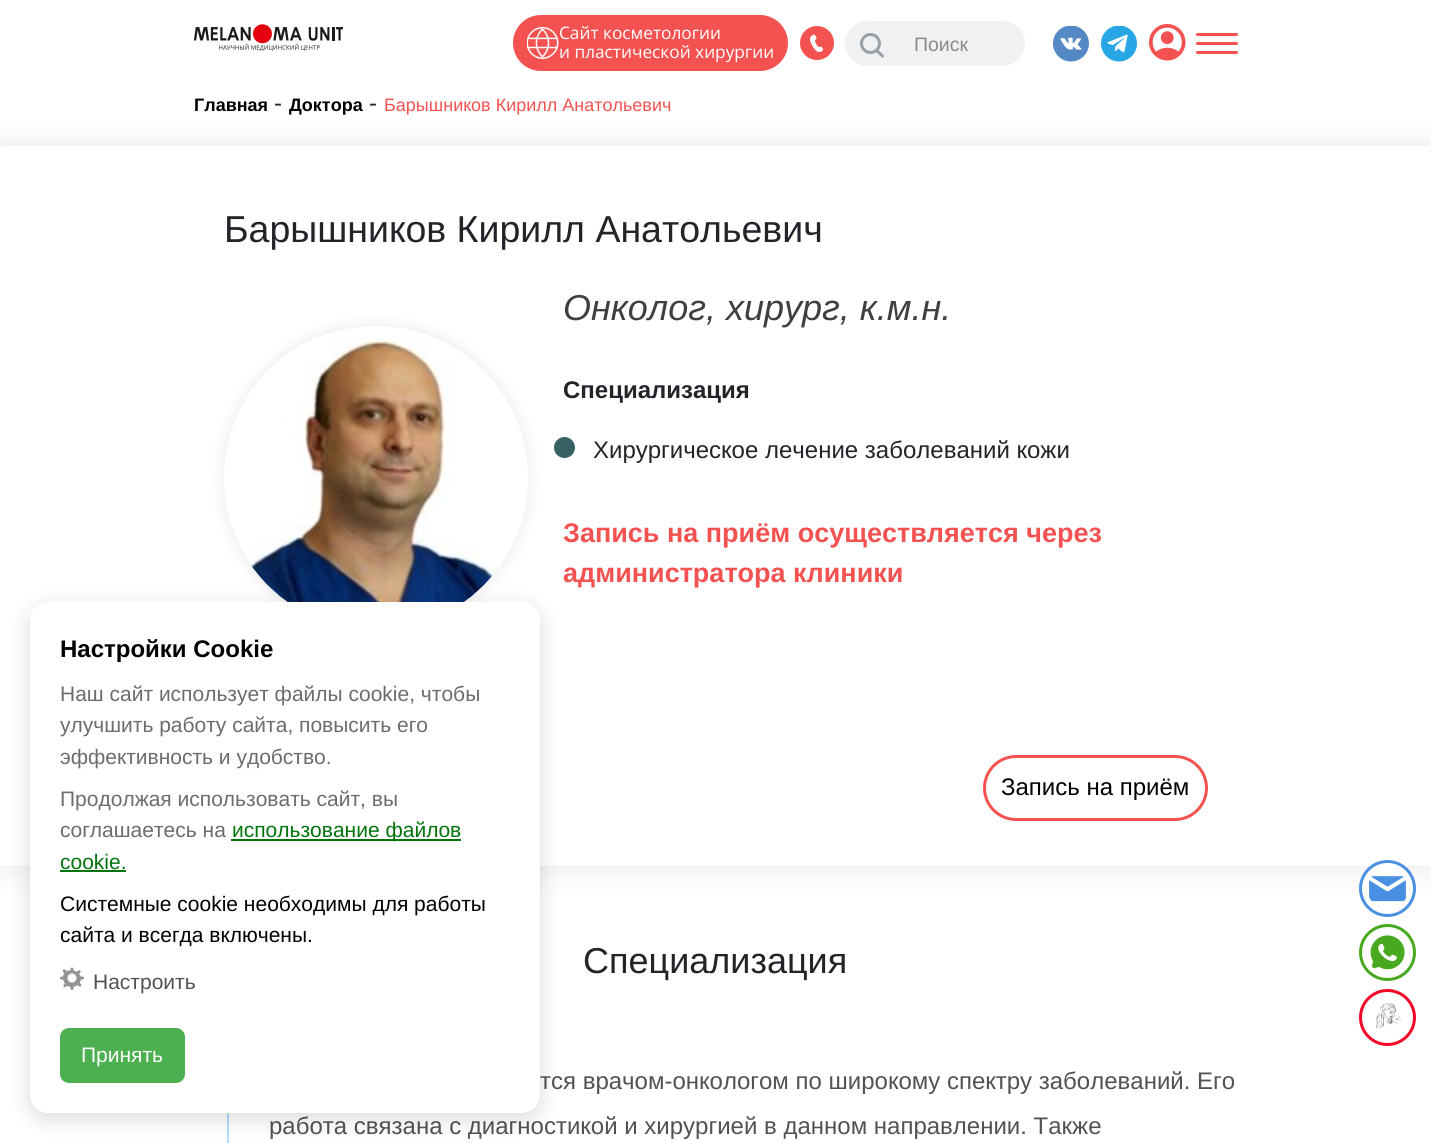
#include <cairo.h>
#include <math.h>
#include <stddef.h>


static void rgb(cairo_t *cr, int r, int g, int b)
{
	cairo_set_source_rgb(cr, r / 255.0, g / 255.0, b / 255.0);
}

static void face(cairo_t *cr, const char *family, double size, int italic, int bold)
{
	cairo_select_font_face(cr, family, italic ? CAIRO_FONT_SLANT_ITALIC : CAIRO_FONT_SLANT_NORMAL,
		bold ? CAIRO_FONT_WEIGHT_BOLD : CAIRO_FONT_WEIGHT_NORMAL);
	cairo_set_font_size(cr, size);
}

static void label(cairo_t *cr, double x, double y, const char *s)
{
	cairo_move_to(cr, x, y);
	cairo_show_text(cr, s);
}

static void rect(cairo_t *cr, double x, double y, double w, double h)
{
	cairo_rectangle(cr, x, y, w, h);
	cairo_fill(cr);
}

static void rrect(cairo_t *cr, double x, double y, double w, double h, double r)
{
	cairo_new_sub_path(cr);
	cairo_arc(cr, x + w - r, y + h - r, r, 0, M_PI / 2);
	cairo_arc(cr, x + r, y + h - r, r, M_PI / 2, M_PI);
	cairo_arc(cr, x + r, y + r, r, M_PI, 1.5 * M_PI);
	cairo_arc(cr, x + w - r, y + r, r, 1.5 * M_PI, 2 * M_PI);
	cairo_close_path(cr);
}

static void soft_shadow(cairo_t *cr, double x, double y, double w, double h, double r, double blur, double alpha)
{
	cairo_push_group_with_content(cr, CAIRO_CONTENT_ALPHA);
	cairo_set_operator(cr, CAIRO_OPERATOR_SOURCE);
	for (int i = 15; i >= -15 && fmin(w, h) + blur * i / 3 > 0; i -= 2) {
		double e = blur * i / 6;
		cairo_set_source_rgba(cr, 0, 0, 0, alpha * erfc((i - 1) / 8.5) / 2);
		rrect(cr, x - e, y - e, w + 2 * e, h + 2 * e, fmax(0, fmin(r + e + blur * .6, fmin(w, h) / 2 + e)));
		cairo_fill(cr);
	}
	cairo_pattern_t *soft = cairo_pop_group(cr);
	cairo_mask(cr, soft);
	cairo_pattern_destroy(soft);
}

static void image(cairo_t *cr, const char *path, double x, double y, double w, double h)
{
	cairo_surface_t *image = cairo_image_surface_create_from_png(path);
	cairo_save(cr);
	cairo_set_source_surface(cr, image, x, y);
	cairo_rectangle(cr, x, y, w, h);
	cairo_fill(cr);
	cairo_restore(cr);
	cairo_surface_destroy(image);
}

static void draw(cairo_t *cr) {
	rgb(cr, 255, 255, 255);
	cairo_paint(cr);
	image(cr, "image0.png", 194, 24, 149, 27);
	rgb(cr, 244, 82, 81);
	rrect(cr, 513, 15, 275, 56, 28);
	cairo_fill(cr);
	image(cr, "image1.png", 527, 27, 32, 32);
	face(cr, "Open Sans", 17.25, 0, 0);
	rgb(cr, 255, 255, 255);
	label(cr, 559, 39, "Сайт косметологии");
	label(cr, 559, 58, "и пластической хирургии");
	image(cr, "image2.png", 800, 26, 34, 34);
	rgb(cr, 240, 241, 243);
	rrect(cr, 845, 21, 180, 45, 22.5);
	cairo_fill(cr);
	cairo_arc(cr, 870.5, 43.5, 9, 0, 2 * M_PI);
	rgb(cr, 154, 160, 166);
	cairo_set_line_width(cr, 3);
	cairo_stroke(cr);
	cairo_new_path(cr);
	cairo_move_to(cr, 877, 48.5);
	cairo_line_to(cr, 884.5, 56);
	cairo_line_to(cr, 882.5, 58);
	cairo_line_to(cr, 875, 51);
	cairo_close_path(cr);
	cairo_fill(cr);
	face(cr, "Liberation Sans", 19.5, 0, 0);
	rgb(cr, 138, 138, 138);
	label(cr, 914, 51, "Поиск");
	image(cr, "image3.png", 1053, 26, 36, 36);
	image(cr, "image4.png", 1101, 26, 36, 36);
	image(cr, "image5.png", 1149, 24, 37, 37);
	rgb(cr, 244, 82, 81);
	rrect(cr, 1196, 33, 42, 3, 1.5);
	cairo_fill(cr);
	rrect(cr, 1196, 42, 42, 3, 1.5);
	cairo_fill(cr);
	rrect(cr, 1196, 51, 42, 3, 1.5);
	cairo_fill(cr);
	face(cr, "Liberation Sans", 18, 0, 1);
	rgb(cr, 0, 0, 0);
	label(cr, 194, 111, "Главная");
	face(cr, "Liberation Sans", 24, 0, 0);
	rgb(cr, 33, 37, 41);
	label(cr, 274, 111, "-");
	face(cr, "Liberation Sans", 18, 0, 1);
	rgb(cr, 0, 0, 0);
	label(cr, 289, 111, "Доктора");
	face(cr, "Liberation Sans", 24, 0, 0);
	rgb(cr, 33, 37, 41);
	label(cr, 369, 111, "-");
	face(cr, "Liberation Sans", 18, 0, 0);
	rgb(cr, 244, 82, 81);
	label(cr, 384, 111, "Барышников Кирилл Анатольевич");
	cairo_save(cr);
	cairo_set_fill_rule(cr, CAIRO_FILL_RULE_EVEN_ODD);
	cairo_new_path(cr);
	cairo_move_to(cr, 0, 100);
	cairo_line_to(cr, 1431, 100);
	cairo_line_to(cr, 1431, 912);
	cairo_line_to(cr, 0, 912);
	cairo_close_path(cr);
	cairo_move_to(cr, 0, 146);
	cairo_line_to(cr, 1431, 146);
	cairo_line_to(cr, 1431, 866);
	cairo_line_to(cr, 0, 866);
	cairo_close_path(cr);
	cairo_clip(cr);
	rgb(cr, 0, 0, 0);
	soft_shadow(cr, 0, 146, 1431, 720, 0, 15, 0.1);
	cairo_restore(cr);
	face(cr, "Liberation Sans", 37.5, 0, 0);
	rgb(cr, 33, 37, 41);
	label(cr, 224, 242, "Барышников Кирилл Анатольевич");
	cairo_save(cr);
	cairo_set_fill_rule(cr, CAIRO_FILL_RULE_EVEN_ODD);
	cairo_new_path(cr);
	cairo_move_to(cr, 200, 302);
	cairo_line_to(cr, 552, 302);
	cairo_line_to(cr, 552, 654);
	cairo_line_to(cr, 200, 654);
	cairo_close_path(cr);
	cairo_move_to(cr, 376, 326);
	cairo_curve_to(cr, 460, 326, 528, 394, 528, 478);
	cairo_curve_to(cr, 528, 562, 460, 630, 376, 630);
	cairo_curve_to(cr, 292, 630, 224, 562, 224, 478);
	cairo_curve_to(cr, 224, 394, 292, 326, 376, 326);
	cairo_close_path(cr);
	cairo_clip(cr);
	rgb(cr, 0, 0, 0);
	soft_shadow(cr, 224, 326, 304, 304, 152, 7.5, 0.1);
	cairo_restore(cr);
	image(cr, "image6.png", 249, 337, 249, 265);
	face(cr, "Liberation Sans", 36, 1, 0);
	rgb(cr, 63, 63, 63);
	label(cr, 563, 320, "Онколог, хирург, к.м.н.");
	face(cr, "Liberation Sans", 24, 0, 1);
	rgb(cr, 33, 37, 41);
	label(cr, 563, 398, "Специализация");
	rgb(cr, 54, 98, 101);
	cairo_new_path(cr);
	cairo_arc(cr, 564.5, 447.5, 10.5, 0, 2 * M_PI);
	cairo_fill(cr);
	face(cr, "Liberation Sans", 24, 0, 0);
	rgb(cr, 33, 37, 41);
	label(cr, 593, 458, "Хирургическое лечение заболеваний кожи");
	face(cr, "Liberation Sans", 27, 0, 1);
	rgb(cr, 244, 82, 81);
	label(cr, 563, 542, "Запись на приём осуществляется через");
	label(cr, 563, 582, "администратора клиники");
	rrect(cr, 984.5, 756.5, 222, 63, 31.5);
	cairo_stroke(cr);
	face(cr, "Liberation Sans", 24, 0, 0);
	rgb(cr, 0, 0, 0);
	label(cr, 1001, 795, "Запись на приём");
	face(cr, "Liberation Sans", 36, 0, 0);
	rgb(cr, 33, 37, 41);
	label(cr, 583, 973, "Специализация");
	rgb(cr, 175, 223, 249);
	rect(cr, 227, 1113, 2, 30);
	face(cr, "Liberation Sans", 24, 0, 0);
	rgb(cr, 82, 82, 82);
	label(cr, 540, 1089, "тся врачом-онкологом по широкому спектру заболеваний. Его");
	label(cr, 269, 1134, "работа связана с диагностикой и хирургией в данном направлении. Также");
	rgb(cr, 0, 0, 0);
	soft_shadow(cr, 30, 608, 510, 511, 18, 11, 0.15);
	rgb(cr, 255, 255, 255);
	rrect(cr, 30, 602, 510, 511, 18);
	cairo_fill(cr);
	face(cr, "Liberation Sans", 24, 0, 1);
	rgb(cr, 0, 0, 0);
	label(cr, 60, 657, "Настройки Cookie");
	face(cr, "Liberation Sans", 21, 0, 0);
	rgb(cr, 108, 108, 108);
	label(cr, 60, 701, "Наш сайт использует файлы cookie, чтобы");
	label(cr, 60, 732, "улучшить работу сайта, повысить его");
	label(cr, 60, 764, "эффективность и удобство.");
	label(cr, 60, 806, "Продолжая использовать сайт, вы");
	label(cr, 60, 837, "соглашаетесь на");
	rgb(cr, 1, 116, 11);
	rect(cr, 231, 839, 230, 2);
	label(cr, 232, 837, "использование файлов");
	label(cr, 60, 869, "cookie.");
	rect(cr, 60, 870, 66, 2);
	rgb(cr, 0, 0, 0);
	label(cr, 60, 911, "Системные cookie необходимы для работы");
	label(cr, 60, 942, "сайта и всегда включены.");
	image(cr, "image7.png", 60, 967, 24, 23);
	rgb(cr, 82, 82, 82);
	label(cr, 93, 989, "Настроить");
	rgb(cr, 76, 175, 80);
	rrect(cr, 60, 1028, 125, 55, 9);
	cairo_fill(cr);
	rgb(cr, 255, 255, 255);
	label(cr, 81, 1062, "Принять");
	rgb(cr, 74, 144, 226);
	cairo_new_path(cr);
	cairo_arc(cr, 1387.5, 888.5, 28.5, 0, 2 * M_PI);
	cairo_fill(cr);
	rgb(cr, 255, 255, 255);
	cairo_arc(cr, 1387.5, 888.5, 25.5, 0, 2 * M_PI);
	cairo_fill(cr);
	image(cr, "image8.png", 1369, 876, 37, 26);
	rgb(cr, 72, 169, 31);
	cairo_arc(cr, 1387.5, 952.5, 28.5, 0, 2 * M_PI);
	cairo_fill(cr);
	rgb(cr, 255, 255, 255);
	cairo_arc(cr, 1387.5, 952.5, 25.5, 0, 2 * M_PI);
	cairo_fill(cr);
	image(cr, "image9.png", 1370, 935, 35, 35);
	rgb(cr, 246, 6, 38);
	cairo_arc(cr, 1387.5, 1017.5, 28.5, 0, 2 * M_PI);
	cairo_fill(cr);
	rgb(cr, 255, 255, 255);
	cairo_arc(cr, 1387.5, 1017.5, 25.5, 0, 2 * M_PI);
	cairo_fill(cr);
	image(cr, "image10.png", 1376, 1002, 25, 27);
}

int main(void) {
	cairo_surface_t *surface = cairo_image_surface_create(CAIRO_FORMAT_RGB24, 1431, 1143);
	cairo_t *cr = cairo_create(surface);
	cairo_font_options_t *options = cairo_font_options_create();
	cairo_font_options_set_hint_metrics(options, CAIRO_HINT_METRICS_OFF);
	cairo_font_options_set_hint_style(options, CAIRO_HINT_STYLE_NONE);
	cairo_set_font_options(cr, options);
	cairo_set_miter_limit(cr, 4);
	draw(cr);
	cairo_surface_write_to_png(surface, "render.png");
	cairo_font_options_destroy(options);
	cairo_destroy(cr);
	cairo_surface_destroy(surface);
	return 0;
}
